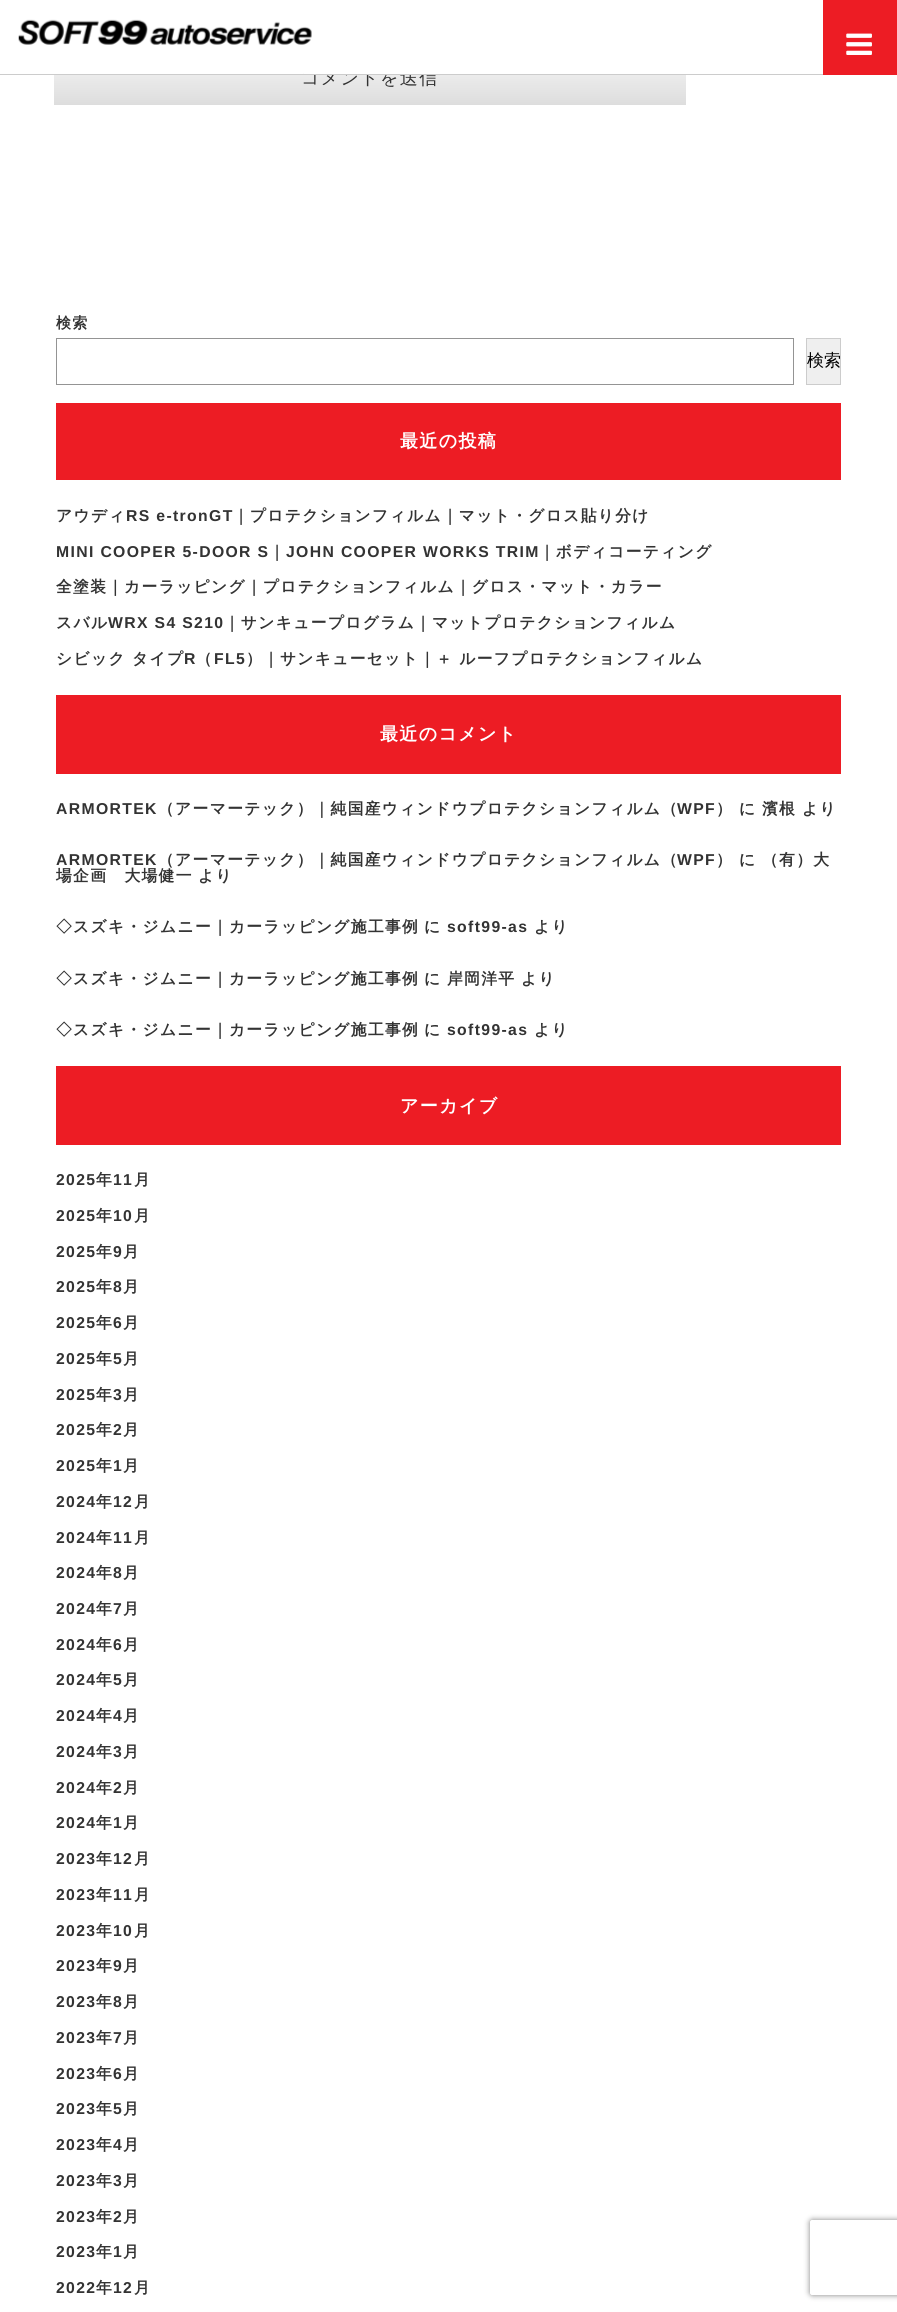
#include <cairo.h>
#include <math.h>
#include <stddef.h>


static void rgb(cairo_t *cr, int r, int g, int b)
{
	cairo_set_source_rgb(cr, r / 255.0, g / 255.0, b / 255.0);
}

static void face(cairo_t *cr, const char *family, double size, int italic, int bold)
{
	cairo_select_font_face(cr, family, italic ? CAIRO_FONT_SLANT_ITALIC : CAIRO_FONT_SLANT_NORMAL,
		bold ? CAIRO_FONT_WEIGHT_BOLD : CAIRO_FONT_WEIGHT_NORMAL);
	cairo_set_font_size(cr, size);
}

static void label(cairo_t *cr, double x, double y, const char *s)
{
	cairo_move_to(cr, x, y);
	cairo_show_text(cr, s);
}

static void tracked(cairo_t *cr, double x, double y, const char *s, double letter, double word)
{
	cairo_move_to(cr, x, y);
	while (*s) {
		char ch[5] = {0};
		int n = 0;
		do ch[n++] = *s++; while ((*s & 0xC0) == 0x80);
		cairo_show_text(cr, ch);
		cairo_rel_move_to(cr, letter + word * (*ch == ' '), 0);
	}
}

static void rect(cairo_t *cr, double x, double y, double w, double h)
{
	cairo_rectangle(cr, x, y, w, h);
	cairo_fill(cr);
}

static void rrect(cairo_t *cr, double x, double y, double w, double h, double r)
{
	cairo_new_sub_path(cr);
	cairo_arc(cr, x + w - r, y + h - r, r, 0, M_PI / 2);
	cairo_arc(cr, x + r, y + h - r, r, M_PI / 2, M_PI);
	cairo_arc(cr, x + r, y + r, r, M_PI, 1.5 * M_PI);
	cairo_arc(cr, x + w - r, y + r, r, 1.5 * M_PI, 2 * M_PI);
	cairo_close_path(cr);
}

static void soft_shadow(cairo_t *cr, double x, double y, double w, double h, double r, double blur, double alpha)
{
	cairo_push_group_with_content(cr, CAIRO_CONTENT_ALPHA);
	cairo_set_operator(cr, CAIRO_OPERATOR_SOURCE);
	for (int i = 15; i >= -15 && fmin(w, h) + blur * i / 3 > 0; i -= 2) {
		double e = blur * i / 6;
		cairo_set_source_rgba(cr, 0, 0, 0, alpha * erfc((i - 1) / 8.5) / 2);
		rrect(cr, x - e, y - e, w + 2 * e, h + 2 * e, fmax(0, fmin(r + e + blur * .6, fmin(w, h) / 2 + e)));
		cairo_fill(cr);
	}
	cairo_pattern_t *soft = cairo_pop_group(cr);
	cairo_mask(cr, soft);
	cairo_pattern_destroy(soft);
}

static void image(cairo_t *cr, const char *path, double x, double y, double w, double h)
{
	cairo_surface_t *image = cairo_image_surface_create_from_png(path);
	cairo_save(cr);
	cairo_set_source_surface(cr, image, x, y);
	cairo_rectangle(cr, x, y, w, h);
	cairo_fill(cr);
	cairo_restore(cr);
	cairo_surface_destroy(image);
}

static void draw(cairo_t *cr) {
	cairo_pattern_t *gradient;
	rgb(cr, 255, 255, 255);
	cairo_paint(cr);
	gradient = cairo_pattern_create_linear(370, 51, 370, 105);
	cairo_pattern_add_color_stop_rgba(gradient, 0, 0.969, 0.969, 0.969, 1);
	cairo_pattern_add_color_stop_rgba(gradient, 1, 0.867, 0.867, 0.867, 1);
	cairo_set_source(cr, gradient);
	cairo_pattern_destroy(gradient);
	rect(cr, 54, 75, 632, 30);
	face(cr, "WenQuanYi Zen Hei Medium", 18, 0, 0);
	rgb(cr, 51, 51, 51);
	tracked(cr, 301, 84, "コメントを送信", 1.35, 0);
	rgb(cr, 255, 255, 255);
	rect(cr, 304, 69, 133, 5);
	rgb(cr, 204, 204, 204);
	rect(cr, 0, 74, 823, 1);
	image(cr, "image0.png", 18, 19, 294, 26);
	rgb(cr, 237, 28, 36);
	rect(cr, 823, 0, 74, 75);
	image(cr, "image1.png", 846, 33, 26, 22);
	face(cr, "WenQuanYi Zen Hei", 15, 0, 1);
	rgb(cr, 51, 51, 51);
	tracked(cr, 56, 328, "検索", 1.35, 0);
	cairo_rectangle(cr, 56.5, 338.5, 737, 46);
	rgb(cr, 148, 148, 148);
	cairo_set_line_width(cr, 1);
	cairo_stroke(cr);
	rgb(cr, 239, 239, 239);
	cairo_rectangle(cr, 806.5, 338.5, 34, 46);
	cairo_fill_preserve(cr);
	rgb(cr, 204, 204, 204);
	cairo_stroke(cr);
	face(cr, "WenQuanYi Zen Hei Medium", 17, 0, 0);
	rgb(cr, 0, 0, 0);
	label(cr, 807, 366, "検索");
	rgb(cr, 237, 28, 36);
	rect(cr, 56, 403, 785, 77);
	face(cr, "WenQuanYi Zen Hei", 18, 0, 1);
	rgb(cr, 255, 255, 255);
	tracked(cr, 400, 447, "最近の投稿", 1.35, 0);
	face(cr, "WenQuanYi Zen Hei", 15.75, 0, 1);
	rgb(cr, 51, 51, 51);
	tracked(cr, 56, 521, "アウディ", 1.35, 0);
	face(cr, "Liberation Sans", 15.75, 0, 1);
	tracked(cr, 126, 521, "RS e-tronGT", 1.35, 0);
	face(cr, "WenQuanYi Zen Hei", 15.75, 0, 1);
	tracked(cr, 233, 521, "｜プロテクションフィルム｜マット・グロス貼り分け", 1.35, 0);
	face(cr, "Liberation Sans", 15.75, 0, 1);
	tracked(cr, 56, 557, "MINI COOPER 5-DOOR S", 1.35, 0);
	face(cr, "WenQuanYi Zen Hei", 15.75, 0, 1);
	tracked(cr, 269, 557, "｜", 1.35, 0);
	face(cr, "Liberation Sans", 15.75, 0, 1);
	tracked(cr, 286, 557, "JOHN COOPER WORKS TRIM", 1.35, 0);
	face(cr, "WenQuanYi Zen Hei", 15.75, 0, 1);
	tracked(cr, 539, 557, "｜ボディコーティング", 1.35, 0);
	tracked(cr, 56, 592, "全塗装｜カーラッピング｜プロテクションフィルム｜グロス・マット・カラー", 1.35, 0);
	tracked(cr, 56, 628, "スバル", 1.35, 0);
	face(cr, "Liberation Sans", 15.75, 0, 1);
	tracked(cr, 108, 628, "WRX S4 S210", 1.35, 0);
	face(cr, "WenQuanYi Zen Hei", 15.75, 0, 1);
	tracked(cr, 224, 628, "｜サンキュープログラム｜マットプロテクションフィルム", 1.35, 0);
	tracked(cr, 56, 664, "シビック タイプ", 1.35, 0);
	face(cr, "Liberation Sans", 15.75, 0, 1);
	tracked(cr, 184, 664, "R", 1.35, 0);
	face(cr, "WenQuanYi Zen Hei", 15.75, 0, 1);
	tracked(cr, 196, 664, "（", 1.35, 0);
	face(cr, "Liberation Sans", 15.75, 0, 1);
	tracked(cr, 214, 664, "FL5", 1.35, 0);
	face(cr, "WenQuanYi Zen Hei", 15.75, 0, 1);
	tracked(cr, 246, 664, "）｜サンキューセット｜＋ ルーフプロテクションフィルム", 1.35, 0);
	rgb(cr, 237, 28, 36);
	rect(cr, 56, 695, 785, 79);
	face(cr, "WenQuanYi Zen Hei", 18, 0, 1);
	rgb(cr, 255, 255, 255);
	tracked(cr, 380, 740, "最近のコメント", 1.35, 0);
	face(cr, "Liberation Sans", 15.75, 0, 1);
	rgb(cr, 51, 51, 51);
	tracked(cr, 56, 814, "ARMORTEK", 1.35, 0);
	face(cr, "WenQuanYi Zen Hei", 15.75, 0, 1);
	tracked(cr, 158, 814, "（アーマーテック）｜純国産ウィンドウプロテクションフィルム（", 1.35, 0);
	face(cr, "Liberation Sans", 15.75, 0, 1);
	tracked(cr, 677, 814, "WPF", 1.35, 0);
	face(cr, "WenQuanYi Zen Hei", 15.75, 0, 1);
	tracked(cr, 716, 814, "）", 1.35, 0);
	tracked(cr, 739, 814, "に", 1.35, 0);
	tracked(cr, 762, 814, "濱根", 1.35, 0);
	tracked(cr, 802, 814, "より", 1.35, 0);
	face(cr, "Liberation Sans", 15.75, 0, 1);
	tracked(cr, 56, 865, "ARMORTEK", 1.35, 0);
	face(cr, "WenQuanYi Zen Hei", 15.75, 0, 1);
	tracked(cr, 158, 865, "（アーマーテック）｜純国産ウィンドウプロテクションフィルム（", 1.35, 0);
	face(cr, "Liberation Sans", 15.75, 0, 1);
	tracked(cr, 677, 865, "WPF", 1.35, 0);
	face(cr, "WenQuanYi Zen Hei", 15.75, 0, 1);
	tracked(cr, 716, 865, "）", 1.35, 0);
	tracked(cr, 739, 865, "に", 1.35, 0);
	tracked(cr, 762, 865, "（有）大", 1.35, 0);
	tracked(cr, 56, 881, "場企画　大場健一", 1.35, 0);
	tracked(cr, 198, 881, "より", 1.35, 0);
	tracked(cr, 56, 932, "◇スズキ・ジムニー｜カーラッピング施工事例", 1.35, 0);
	tracked(cr, 424, 932, "に", 1.35, 0);
	face(cr, "Liberation Sans", 15.75, 0, 1);
	tracked(cr, 447, 932, "soft99-as", 1.35, 0);
	face(cr, "WenQuanYi Zen Hei", 15.75, 0, 1);
	tracked(cr, 534, 932, "より", 1.35, 0);
	tracked(cr, 56, 984, "◇スズキ・ジムニー｜カーラッピング施工事例", 1.35, 0);
	tracked(cr, 424, 984, "に", 1.35, 0);
	tracked(cr, 447, 984, "岸岡洋平", 1.35, 0);
	tracked(cr, 521, 984, "より", 1.35, 0);
	tracked(cr, 56, 1035, "◇スズキ・ジムニー｜カーラッピング施工事例", 1.35, 0);
	tracked(cr, 424, 1035, "に", 1.35, 0);
	face(cr, "Liberation Sans", 15.75, 0, 1);
	tracked(cr, 447, 1035, "soft99-as", 1.35, 0);
	face(cr, "WenQuanYi Zen Hei", 15.75, 0, 1);
	tracked(cr, 534, 1035, "より", 1.35, 0);
	rgb(cr, 237, 28, 36);
	rect(cr, 56, 1066, 785, 79);
	face(cr, "WenQuanYi Zen Hei", 18, 0, 1);
	rgb(cr, 255, 255, 255);
	tracked(cr, 400, 1112, "アーカイブ", 1.35, 0);
	face(cr, "Liberation Sans", 15.75, 0, 1);
	rgb(cr, 51, 51, 51);
	tracked(cr, 56, 1185, "2025", 1.35, 0);
	face(cr, "WenQuanYi Zen Hei", 15.75, 0, 1);
	tracked(cr, 96, 1185, "年", 1.35, 0);
	face(cr, "Liberation Sans", 15.75, 0, 1);
	tracked(cr, 113, 1185, "11", 1.35, 0);
	face(cr, "WenQuanYi Zen Hei", 15.75, 0, 1);
	tracked(cr, 134, 1185, "月", 1.35, 0);
	face(cr, "Liberation Sans", 15.75, 0, 1);
	tracked(cr, 56, 1221, "2025", 1.35, 0);
	face(cr, "WenQuanYi Zen Hei", 15.75, 0, 1);
	tracked(cr, 96, 1221, "年", 1.35, 0);
	face(cr, "Liberation Sans", 15.75, 0, 1);
	tracked(cr, 113, 1221, "10", 1.35, 0);
	face(cr, "WenQuanYi Zen Hei", 15.75, 0, 1);
	tracked(cr, 134, 1221, "月", 1.35, 0);
	face(cr, "Liberation Sans", 15.75, 0, 1);
	tracked(cr, 56, 1257, "2025", 1.35, 0);
	face(cr, "WenQuanYi Zen Hei", 15.75, 0, 1);
	tracked(cr, 96, 1257, "年", 1.35, 0);
	face(cr, "Liberation Sans", 15.75, 0, 1);
	tracked(cr, 113, 1257, "9", 1.35, 0);
	face(cr, "WenQuanYi Zen Hei", 15.75, 0, 1);
	tracked(cr, 123, 1257, "月", 1.35, 0);
	face(cr, "Liberation Sans", 15.75, 0, 1);
	tracked(cr, 56, 1292, "2025", 1.35, 0);
	face(cr, "WenQuanYi Zen Hei", 15.75, 0, 1);
	tracked(cr, 96, 1292, "年", 1.35, 0);
	face(cr, "Liberation Sans", 15.75, 0, 1);
	tracked(cr, 113, 1292, "8", 1.35, 0);
	face(cr, "WenQuanYi Zen Hei", 15.75, 0, 1);
	tracked(cr, 123, 1292, "月", 1.35, 0);
	face(cr, "Liberation Sans", 15.75, 0, 1);
	tracked(cr, 56, 1328, "2025", 1.35, 0);
	face(cr, "WenQuanYi Zen Hei", 15.75, 0, 1);
	tracked(cr, 96, 1328, "年", 1.35, 0);
	face(cr, "Liberation Sans", 15.75, 0, 1);
	tracked(cr, 113, 1328, "6", 1.35, 0);
	face(cr, "WenQuanYi Zen Hei", 15.75, 0, 1);
	tracked(cr, 123, 1328, "月", 1.35, 0);
	face(cr, "Liberation Sans", 15.75, 0, 1);
	tracked(cr, 56, 1364, "2025", 1.35, 0);
	face(cr, "WenQuanYi Zen Hei", 15.75, 0, 1);
	tracked(cr, 96, 1364, "年", 1.35, 0);
	face(cr, "Liberation Sans", 15.75, 0, 1);
	tracked(cr, 113, 1364, "5", 1.35, 0);
	face(cr, "WenQuanYi Zen Hei", 15.75, 0, 1);
	tracked(cr, 123, 1364, "月", 1.35, 0);
	face(cr, "Liberation Sans", 15.75, 0, 1);
	tracked(cr, 56, 1400, "2025", 1.35, 0);
	face(cr, "WenQuanYi Zen Hei", 15.75, 0, 1);
	tracked(cr, 96, 1400, "年", 1.35, 0);
	face(cr, "Liberation Sans", 15.75, 0, 1);
	tracked(cr, 113, 1400, "3", 1.35, 0);
	face(cr, "WenQuanYi Zen Hei", 15.75, 0, 1);
	tracked(cr, 123, 1400, "月", 1.35, 0);
	face(cr, "Liberation Sans", 15.75, 0, 1);
	tracked(cr, 56, 1435, "2025", 1.35, 0);
	face(cr, "WenQuanYi Zen Hei", 15.75, 0, 1);
	tracked(cr, 96, 1435, "年", 1.35, 0);
	face(cr, "Liberation Sans", 15.75, 0, 1);
	tracked(cr, 113, 1435, "2", 1.35, 0);
	face(cr, "WenQuanYi Zen Hei", 15.75, 0, 1);
	tracked(cr, 123, 1435, "月", 1.35, 0);
	face(cr, "Liberation Sans", 15.75, 0, 1);
	tracked(cr, 56, 1471, "2025", 1.35, 0);
	face(cr, "WenQuanYi Zen Hei", 15.75, 0, 1);
	tracked(cr, 96, 1471, "年", 1.35, 0);
	face(cr, "Liberation Sans", 15.75, 0, 1);
	tracked(cr, 113, 1471, "1", 1.35, 0);
	face(cr, "WenQuanYi Zen Hei", 15.75, 0, 1);
	tracked(cr, 123, 1471, "月", 1.35, 0);
	face(cr, "Liberation Sans", 15.75, 0, 1);
	tracked(cr, 56, 1507, "2024", 1.35, 0);
	face(cr, "WenQuanYi Zen Hei", 15.75, 0, 1);
	tracked(cr, 96, 1507, "年", 1.35, 0);
	face(cr, "Liberation Sans", 15.75, 0, 1);
	tracked(cr, 113, 1507, "12", 1.35, 0);
	face(cr, "WenQuanYi Zen Hei", 15.75, 0, 1);
	tracked(cr, 134, 1507, "月", 1.35, 0);
	face(cr, "Liberation Sans", 15.75, 0, 1);
	tracked(cr, 56, 1543, "2024", 1.35, 0);
	face(cr, "WenQuanYi Zen Hei", 15.75, 0, 1);
	tracked(cr, 96, 1543, "年", 1.35, 0);
	face(cr, "Liberation Sans", 15.75, 0, 1);
	tracked(cr, 113, 1543, "11", 1.35, 0);
	face(cr, "WenQuanYi Zen Hei", 15.75, 0, 1);
	tracked(cr, 134, 1543, "月", 1.35, 0);
	face(cr, "Liberation Sans", 15.75, 0, 1);
	tracked(cr, 56, 1578, "2024", 1.35, 0);
	face(cr, "WenQuanYi Zen Hei", 15.75, 0, 1);
	tracked(cr, 96, 1578, "年", 1.35, 0);
	face(cr, "Liberation Sans", 15.75, 0, 1);
	tracked(cr, 113, 1578, "8", 1.35, 0);
	face(cr, "WenQuanYi Zen Hei", 15.75, 0, 1);
	tracked(cr, 123, 1578, "月", 1.35, 0);
	face(cr, "Liberation Sans", 15.75, 0, 1);
	tracked(cr, 56, 1614, "2024", 1.35, 0);
	face(cr, "WenQuanYi Zen Hei", 15.75, 0, 1);
	tracked(cr, 96, 1614, "年", 1.35, 0);
	face(cr, "Liberation Sans", 15.75, 0, 1);
	tracked(cr, 113, 1614, "7", 1.35, 0);
	face(cr, "WenQuanYi Zen Hei", 15.75, 0, 1);
	tracked(cr, 123, 1614, "月", 1.35, 0);
	face(cr, "Liberation Sans", 15.75, 0, 1);
	tracked(cr, 56, 1650, "2024", 1.35, 0);
	face(cr, "WenQuanYi Zen Hei", 15.75, 0, 1);
	tracked(cr, 96, 1650, "年", 1.35, 0);
	face(cr, "Liberation Sans", 15.75, 0, 1);
	tracked(cr, 113, 1650, "6", 1.35, 0);
	face(cr, "WenQuanYi Zen Hei", 15.75, 0, 1);
	tracked(cr, 123, 1650, "月", 1.35, 0);
	face(cr, "Liberation Sans", 15.75, 0, 1);
	tracked(cr, 56, 1685, "2024", 1.35, 0);
	face(cr, "WenQuanYi Zen Hei", 15.75, 0, 1);
	tracked(cr, 96, 1685, "年", 1.35, 0);
	face(cr, "Liberation Sans", 15.75, 0, 1);
	tracked(cr, 113, 1685, "5", 1.35, 0);
	face(cr, "WenQuanYi Zen Hei", 15.75, 0, 1);
	tracked(cr, 123, 1685, "月", 1.35, 0);
	face(cr, "Liberation Sans", 15.75, 0, 1);
	tracked(cr, 56, 1721, "2024", 1.35, 0);
	face(cr, "WenQuanYi Zen Hei", 15.75, 0, 1);
	tracked(cr, 96, 1721, "年", 1.35, 0);
	face(cr, "Liberation Sans", 15.75, 0, 1);
	tracked(cr, 113, 1721, "4", 1.35, 0);
	face(cr, "WenQuanYi Zen Hei", 15.75, 0, 1);
	tracked(cr, 123, 1721, "月", 1.35, 0);
	face(cr, "Liberation Sans", 15.75, 0, 1);
	tracked(cr, 56, 1757, "2024", 1.35, 0);
	face(cr, "WenQuanYi Zen Hei", 15.75, 0, 1);
	tracked(cr, 96, 1757, "年", 1.35, 0);
	face(cr, "Liberation Sans", 15.75, 0, 1);
	tracked(cr, 113, 1757, "3", 1.35, 0);
	face(cr, "WenQuanYi Zen Hei", 15.75, 0, 1);
	tracked(cr, 123, 1757, "月", 1.35, 0);
	face(cr, "Liberation Sans", 15.75, 0, 1);
	tracked(cr, 56, 1793, "2024", 1.35, 0);
	face(cr, "WenQuanYi Zen Hei", 15.75, 0, 1);
	tracked(cr, 96, 1793, "年", 1.35, 0);
	face(cr, "Liberation Sans", 15.75, 0, 1);
	tracked(cr, 113, 1793, "2", 1.35, 0);
	face(cr, "WenQuanYi Zen Hei", 15.75, 0, 1);
	tracked(cr, 123, 1793, "月", 1.35, 0);
	face(cr, "Liberation Sans", 15.75, 0, 1);
	tracked(cr, 56, 1828, "2024", 1.35, 0);
	face(cr, "WenQuanYi Zen Hei", 15.75, 0, 1);
	tracked(cr, 96, 1828, "年", 1.35, 0);
	face(cr, "Liberation Sans", 15.75, 0, 1);
	tracked(cr, 113, 1828, "1", 1.35, 0);
	face(cr, "WenQuanYi Zen Hei", 15.75, 0, 1);
	tracked(cr, 123, 1828, "月", 1.35, 0);
	face(cr, "Liberation Sans", 15.75, 0, 1);
	tracked(cr, 56, 1864, "2023", 1.35, 0);
	face(cr, "WenQuanYi Zen Hei", 15.75, 0, 1);
	tracked(cr, 96, 1864, "年", 1.35, 0);
	face(cr, "Liberation Sans", 15.75, 0, 1);
	tracked(cr, 113, 1864, "12", 1.35, 0);
	face(cr, "WenQuanYi Zen Hei", 15.75, 0, 1);
	tracked(cr, 134, 1864, "月", 1.35, 0);
	face(cr, "Liberation Sans", 15.75, 0, 1);
	tracked(cr, 56, 1900, "2023", 1.35, 0);
	face(cr, "WenQuanYi Zen Hei", 15.75, 0, 1);
	tracked(cr, 96, 1900, "年", 1.35, 0);
	face(cr, "Liberation Sans", 15.75, 0, 1);
	tracked(cr, 113, 1900, "11", 1.35, 0);
	face(cr, "WenQuanYi Zen Hei", 15.75, 0, 1);
	tracked(cr, 134, 1900, "月", 1.35, 0);
	face(cr, "Liberation Sans", 15.75, 0, 1);
	tracked(cr, 56, 1936, "2023", 1.35, 0);
	face(cr, "WenQuanYi Zen Hei", 15.75, 0, 1);
	tracked(cr, 96, 1936, "年", 1.35, 0);
	face(cr, "Liberation Sans", 15.75, 0, 1);
	tracked(cr, 113, 1936, "10", 1.35, 0);
	face(cr, "WenQuanYi Zen Hei", 15.75, 0, 1);
	tracked(cr, 134, 1936, "月", 1.35, 0);
	face(cr, "Liberation Sans", 15.75, 0, 1);
	tracked(cr, 56, 1971, "2023", 1.35, 0);
	face(cr, "WenQuanYi Zen Hei", 15.75, 0, 1);
	tracked(cr, 96, 1971, "年", 1.35, 0);
	face(cr, "Liberation Sans", 15.75, 0, 1);
	tracked(cr, 113, 1971, "9", 1.35, 0);
	face(cr, "WenQuanYi Zen Hei", 15.75, 0, 1);
	tracked(cr, 123, 1971, "月", 1.35, 0);
	face(cr, "Liberation Sans", 15.75, 0, 1);
	tracked(cr, 56, 2007, "2023", 1.35, 0);
	face(cr, "WenQuanYi Zen Hei", 15.75, 0, 1);
	tracked(cr, 96, 2007, "年", 1.35, 0);
	face(cr, "Liberation Sans", 15.75, 0, 1);
	tracked(cr, 113, 2007, "8", 1.35, 0);
	face(cr, "WenQuanYi Zen Hei", 15.75, 0, 1);
	tracked(cr, 123, 2007, "月", 1.35, 0);
	face(cr, "Liberation Sans", 15.75, 0, 1);
	tracked(cr, 56, 2043, "2023", 1.35, 0);
	face(cr, "WenQuanYi Zen Hei", 15.75, 0, 1);
	tracked(cr, 96, 2043, "年", 1.35, 0);
	face(cr, "Liberation Sans", 15.75, 0, 1);
	tracked(cr, 113, 2043, "7", 1.35, 0);
	face(cr, "WenQuanYi Zen Hei", 15.75, 0, 1);
	tracked(cr, 123, 2043, "月", 1.35, 0);
	face(cr, "Liberation Sans", 15.75, 0, 1);
	tracked(cr, 56, 2079, "2023", 1.35, 0);
	face(cr, "WenQuanYi Zen Hei", 15.75, 0, 1);
	tracked(cr, 96, 2079, "年", 1.35, 0);
	face(cr, "Liberation Sans", 15.75, 0, 1);
	tracked(cr, 113, 2079, "6", 1.35, 0);
	face(cr, "WenQuanYi Zen Hei", 15.75, 0, 1);
	tracked(cr, 123, 2079, "月", 1.35, 0);
	face(cr, "Liberation Sans", 15.75, 0, 1);
	tracked(cr, 56, 2114, "2023", 1.35, 0);
	face(cr, "WenQuanYi Zen Hei", 15.75, 0, 1);
	tracked(cr, 96, 2114, "年", 1.35, 0);
	face(cr, "Liberation Sans", 15.75, 0, 1);
	tracked(cr, 113, 2114, "5", 1.35, 0);
	face(cr, "WenQuanYi Zen Hei", 15.75, 0, 1);
	tracked(cr, 123, 2114, "月", 1.35, 0);
	face(cr, "Liberation Sans", 15.75, 0, 1);
	tracked(cr, 56, 2150, "2023", 1.35, 0);
	face(cr, "WenQuanYi Zen Hei", 15.75, 0, 1);
	tracked(cr, 96, 2150, "年", 1.35, 0);
	face(cr, "Liberation Sans", 15.75, 0, 1);
	tracked(cr, 113, 2150, "4", 1.35, 0);
	face(cr, "WenQuanYi Zen Hei", 15.75, 0, 1);
	tracked(cr, 123, 2150, "月", 1.35, 0);
	face(cr, "Liberation Sans", 15.75, 0, 1);
	tracked(cr, 56, 2186, "2023", 1.35, 0);
	face(cr, "WenQuanYi Zen Hei", 15.75, 0, 1);
	tracked(cr, 96, 2186, "年", 1.35, 0);
	face(cr, "Liberation Sans", 15.75, 0, 1);
	tracked(cr, 113, 2186, "3", 1.35, 0);
	face(cr, "WenQuanYi Zen Hei", 15.75, 0, 1);
	tracked(cr, 123, 2186, "月", 1.35, 0);
	face(cr, "Liberation Sans", 15.75, 0, 1);
	tracked(cr, 56, 2222, "2023", 1.35, 0);
	face(cr, "WenQuanYi Zen Hei", 15.75, 0, 1);
	tracked(cr, 96, 2222, "年", 1.35, 0);
	face(cr, "Liberation Sans", 15.75, 0, 1);
	tracked(cr, 113, 2222, "2", 1.35, 0);
	face(cr, "WenQuanYi Zen Hei", 15.75, 0, 1);
	tracked(cr, 123, 2222, "月", 1.35, 0);
	face(cr, "Liberation Sans", 15.75, 0, 1);
	tracked(cr, 56, 2257, "2023", 1.35, 0);
	face(cr, "WenQuanYi Zen Hei", 15.75, 0, 1);
	tracked(cr, 96, 2257, "年", 1.35, 0);
	face(cr, "Liberation Sans", 15.75, 0, 1);
	tracked(cr, 113, 2257, "1", 1.35, 0);
	face(cr, "WenQuanYi Zen Hei", 15.75, 0, 1);
	tracked(cr, 123, 2257, "月", 1.35, 0);
	face(cr, "Liberation Sans", 15.75, 0, 1);
	tracked(cr, 56, 2293, "2022", 1.35, 0);
	face(cr, "WenQuanYi Zen Hei", 15.75, 0, 1);
	tracked(cr, 96, 2293, "年", 1.35, 0);
	face(cr, "Liberation Sans", 15.75, 0, 1);
	tracked(cr, 113, 2293, "12", 1.35, 0);
	face(cr, "WenQuanYi Zen Hei", 15.75, 0, 1);
	tracked(cr, 134, 2293, "月", 1.35, 0);
	cairo_save(cr);
	cairo_set_fill_rule(cr, CAIRO_FILL_RULE_EVEN_ODD);
	cairo_new_path(cr);
	cairo_move_to(cr, 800, 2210);
	cairo_line_to(cr, 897, 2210);
	cairo_line_to(cr, 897, 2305);
	cairo_line_to(cr, 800, 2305);
	cairo_close_path(cr);
	cairo_move_to(cr, 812.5, 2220);
	cairo_line_to(cr, 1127.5, 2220);
	cairo_curve_to(cr, 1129, 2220, 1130, 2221, 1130, 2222.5);
	cairo_line_to(cr, 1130, 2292.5);
	cairo_curve_to(cr, 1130, 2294, 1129, 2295, 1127.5, 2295);
	cairo_line_to(cr, 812.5, 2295);
	cairo_curve_to(cr, 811, 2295, 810, 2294, 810, 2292.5);
	cairo_line_to(cr, 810, 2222.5);
	cairo_curve_to(cr, 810, 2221, 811, 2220, 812.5, 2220);
	cairo_close_path(cr);
	cairo_clip(cr);
	rgb(cr, 128, 128, 128);
	soft_shadow(cr, 810, 2220, 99, 75, 2.5, 3, 1);
	cairo_restore(cr);
}

int main(void) {
	cairo_surface_t *surface = cairo_image_surface_create(CAIRO_FORMAT_RGB24, 897, 2312);
	cairo_t *cr = cairo_create(surface);
	cairo_font_options_t *options = cairo_font_options_create();
	cairo_font_options_set_hint_metrics(options, CAIRO_HINT_METRICS_OFF);
	cairo_font_options_set_hint_style(options, CAIRO_HINT_STYLE_NONE);
	cairo_set_font_options(cr, options);
	cairo_set_miter_limit(cr, 4);
	draw(cr);
	cairo_surface_write_to_png(surface, "render.png");
	cairo_font_options_destroy(options);
	cairo_destroy(cr);
	cairo_surface_destroy(surface);
	return 0;
}
